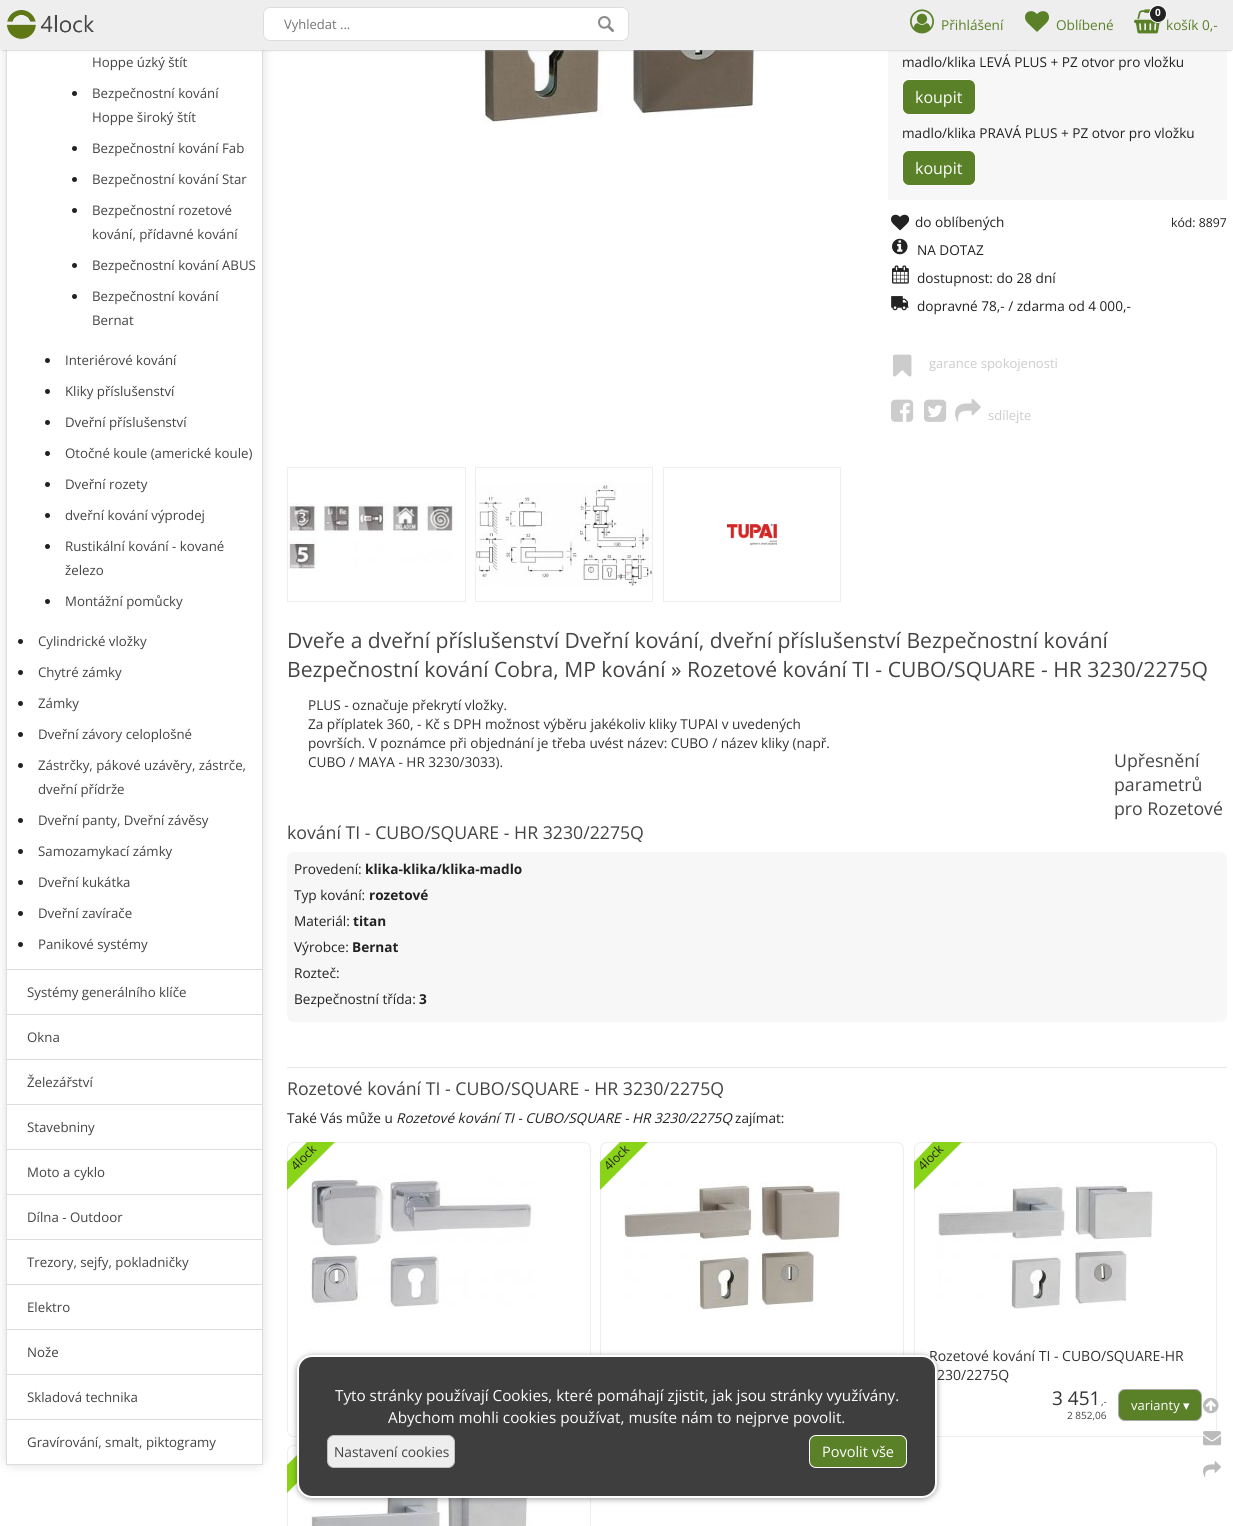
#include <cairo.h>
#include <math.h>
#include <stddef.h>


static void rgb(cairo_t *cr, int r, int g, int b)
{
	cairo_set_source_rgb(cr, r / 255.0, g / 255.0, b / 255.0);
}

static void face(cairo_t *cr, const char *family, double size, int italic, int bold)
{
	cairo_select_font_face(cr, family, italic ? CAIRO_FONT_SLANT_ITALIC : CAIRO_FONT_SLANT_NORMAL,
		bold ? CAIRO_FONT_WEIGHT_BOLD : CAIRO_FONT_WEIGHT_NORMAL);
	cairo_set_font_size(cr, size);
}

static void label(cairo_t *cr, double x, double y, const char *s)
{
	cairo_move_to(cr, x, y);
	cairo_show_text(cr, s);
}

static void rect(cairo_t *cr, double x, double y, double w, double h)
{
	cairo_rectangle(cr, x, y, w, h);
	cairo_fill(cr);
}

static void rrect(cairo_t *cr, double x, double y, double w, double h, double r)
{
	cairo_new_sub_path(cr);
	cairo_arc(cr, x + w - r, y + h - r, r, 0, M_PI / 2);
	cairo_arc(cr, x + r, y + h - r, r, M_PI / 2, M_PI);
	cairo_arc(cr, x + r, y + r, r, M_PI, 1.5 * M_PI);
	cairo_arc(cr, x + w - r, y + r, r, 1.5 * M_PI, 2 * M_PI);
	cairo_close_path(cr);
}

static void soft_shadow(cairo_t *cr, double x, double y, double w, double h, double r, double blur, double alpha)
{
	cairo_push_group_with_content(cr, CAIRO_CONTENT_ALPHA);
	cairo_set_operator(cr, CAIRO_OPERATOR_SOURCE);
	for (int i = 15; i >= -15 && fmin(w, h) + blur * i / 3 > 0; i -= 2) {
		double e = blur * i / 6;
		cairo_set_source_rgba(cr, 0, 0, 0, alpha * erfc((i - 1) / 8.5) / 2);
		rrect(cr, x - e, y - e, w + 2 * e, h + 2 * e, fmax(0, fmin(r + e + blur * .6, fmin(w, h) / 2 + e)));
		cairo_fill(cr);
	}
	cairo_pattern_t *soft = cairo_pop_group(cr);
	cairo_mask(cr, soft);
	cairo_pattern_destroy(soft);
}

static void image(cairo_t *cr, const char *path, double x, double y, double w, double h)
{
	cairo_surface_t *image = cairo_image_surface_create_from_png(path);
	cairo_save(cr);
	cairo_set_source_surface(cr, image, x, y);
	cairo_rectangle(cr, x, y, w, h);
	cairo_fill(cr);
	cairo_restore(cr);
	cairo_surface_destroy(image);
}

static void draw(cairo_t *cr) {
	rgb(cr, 255, 255, 255);
	cairo_paint(cr);
	rgb(cr, 221, 221, 221);
	soft_shadow(cr, 6, -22, 257, 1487, 7, 5, 1);
	rgb(cr, 255, 255, 255);
	rect(cr, 7, 50, 255, 919);
	cairo_rectangle(cr, 6.5, -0.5, 256, 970);
	rgb(cr, 221, 221, 221);
	cairo_set_line_width(cr, 1);
	cairo_stroke(cr);
	image(cr, "image5.png", 483, 50, 274, 73);
	rgb(cr, 247, 247, 247);
	rect(cr, 888, 50, 339, 150);
	rgb(cr, 170, 170, 170);
	soft_shadow(cr, 2, -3, 1229, 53, 0, 1, 1);
	rgb(cr, 238, 238, 238);
	rect(cr, 0, 0, 1233, 50);
	image(cr, "image0.png", 7, 10, 87, 30);
	rgb(cr, 255, 255, 255);
	rrect(cr, 263, 7, 366, 34, 7);
	cairo_fill(cr);
	image(cr, "image1.png", 598, 16, 16, 16);
	rrect(cr, 263.5, 7.5, 365, 33, 6.5);
	rgb(cr, 221, 221, 221);
	cairo_stroke(cr);
	face(cr, "Open Sans", 13, 0, 0);
	rgb(cr, 117, 117, 117);
	label(cr, 284, 29, "Vyhledat ...");
	image(cr, "image2.png", 910, 9, 24, 25);
	face(cr, "Open Sans", 13.6, 0, 0);
	rgb(cr, 90, 128, 40);
	label(cr, 941, 30, "Přihlášení");
	image(cr, "image3.png", 1025, 11, 24, 21);
	label(cr, 1056, 30, "Oblíbené");
	image(cr, "image4.png", 1134, 9, 28, 25);
	rgb(cr, 34, 34, 34);
	cairo_arc(cr, 1158, 14, 8.5, 0, 2 * M_PI);
	cairo_fill_preserve(cr);
	rgb(cr, 255, 255, 255);
	cairo_stroke(cr);
	face(cr, "Open Sans", 10, 0, 1);
	label(cr, 1155, 16, "0");
	face(cr, "Open Sans", 13.6, 0, 0);
	rgb(cr, 90, 128, 40);
	label(cr, 1166, 30, "košík 0,-");
	face(cr, "Open Sans", 13.25, 0, 0);
	rgb(cr, 68, 68, 68);
	label(cr, 92, 67, "Hoppe úzký štít");
	rgb(cr, 34, 34, 34);
	cairo_new_path(cr);
	cairo_arc(cr, 74.5, 93.5, 2.5, 0, 2 * M_PI);
	cairo_fill(cr);
	rgb(cr, 68, 68, 68);
	label(cr, 92, 98, "Bezpečnostní kování");
	label(cr, 92, 122, "Hoppe široký štít");
	rgb(cr, 34, 34, 34);
	cairo_new_path(cr);
	cairo_arc(cr, 74.5, 148.5, 2.5, 0, 2 * M_PI);
	cairo_fill(cr);
	rgb(cr, 68, 68, 68);
	label(cr, 92, 153, "Bezpečnostní kování Fab");
	rgb(cr, 34, 34, 34);
	cairo_new_path(cr);
	cairo_arc(cr, 74.5, 179.5, 2.5, 0, 2 * M_PI);
	cairo_fill(cr);
	rgb(cr, 68, 68, 68);
	label(cr, 92, 184, "Bezpečnostní kování Star");
	rgb(cr, 34, 34, 34);
	cairo_new_path(cr);
	cairo_arc(cr, 74.5, 210.5, 2.5, 0, 2 * M_PI);
	cairo_fill(cr);
	rgb(cr, 68, 68, 68);
	label(cr, 92, 215, "Bezpečnostní rozetové");
	label(cr, 92, 239, "kování, přídavné kování");
	rgb(cr, 34, 34, 34);
	cairo_new_path(cr);
	cairo_arc(cr, 74.5, 265.5, 2.5, 0, 2 * M_PI);
	cairo_fill(cr);
	rgb(cr, 68, 68, 68);
	label(cr, 92, 270, "Bezpečnostní kování ABUS");
	rgb(cr, 34, 34, 34);
	cairo_new_path(cr);
	cairo_arc(cr, 74.5, 296.5, 2.5, 0, 2 * M_PI);
	cairo_fill(cr);
	rgb(cr, 68, 68, 68);
	label(cr, 92, 301, "Bezpečnostní kování");
	label(cr, 92, 325, "Bernat");
	rgb(cr, 34, 34, 34);
	cairo_new_path(cr);
	cairo_arc(cr, 47.5, 360.5, 2.5, 0, 2 * M_PI);
	cairo_fill(cr);
	rgb(cr, 68, 68, 68);
	label(cr, 65, 365, "Interiérové kování");
	rgb(cr, 34, 34, 34);
	cairo_new_path(cr);
	cairo_arc(cr, 47.5, 391.5, 2.5, 0, 2 * M_PI);
	cairo_fill(cr);
	rgb(cr, 68, 68, 68);
	label(cr, 65, 396, "Kliky příslušenství");
	rgb(cr, 34, 34, 34);
	cairo_new_path(cr);
	cairo_arc(cr, 47.5, 422.5, 2.5, 0, 2 * M_PI);
	cairo_fill(cr);
	rgb(cr, 68, 68, 68);
	label(cr, 65, 427, "Dveřní příslušenství");
	rgb(cr, 34, 34, 34);
	cairo_new_path(cr);
	cairo_arc(cr, 47.5, 453.5, 2.5, 0, 2 * M_PI);
	cairo_fill(cr);
	rgb(cr, 68, 68, 68);
	label(cr, 65, 458, "Otočné koule (americké koule)");
	rgb(cr, 34, 34, 34);
	cairo_new_path(cr);
	cairo_arc(cr, 47.5, 484.5, 2.5, 0, 2 * M_PI);
	cairo_fill(cr);
	rgb(cr, 68, 68, 68);
	label(cr, 65, 489, "Dveřní rozety");
	rgb(cr, 34, 34, 34);
	cairo_new_path(cr);
	cairo_arc(cr, 47.5, 515.5, 2.5, 0, 2 * M_PI);
	cairo_fill(cr);
	rgb(cr, 68, 68, 68);
	label(cr, 65, 520, "dveřní kování výprodej");
	rgb(cr, 34, 34, 34);
	cairo_new_path(cr);
	cairo_arc(cr, 47.5, 546.5, 2.5, 0, 2 * M_PI);
	cairo_fill(cr);
	rgb(cr, 68, 68, 68);
	label(cr, 65, 551, "Rustikální kování - kované");
	label(cr, 65, 575, "železo");
	rgb(cr, 34, 34, 34);
	cairo_new_path(cr);
	cairo_arc(cr, 47.5, 601.5, 2.5, 0, 2 * M_PI);
	cairo_fill(cr);
	rgb(cr, 68, 68, 68);
	label(cr, 65, 606, "Montážní pomůcky");
	rgb(cr, 34, 34, 34);
	cairo_new_path(cr);
	cairo_arc(cr, 20.5, 641.5, 2.5, 0, 2 * M_PI);
	cairo_fill(cr);
	rgb(cr, 68, 68, 68);
	label(cr, 38, 646, "Cylindrické vložky");
	rgb(cr, 34, 34, 34);
	cairo_new_path(cr);
	cairo_arc(cr, 20.5, 672.5, 2.5, 0, 2 * M_PI);
	cairo_fill(cr);
	rgb(cr, 68, 68, 68);
	label(cr, 38, 677, "Chytré zámky");
	rgb(cr, 34, 34, 34);
	cairo_new_path(cr);
	cairo_arc(cr, 20.5, 703.5, 2.5, 0, 2 * M_PI);
	cairo_fill(cr);
	rgb(cr, 68, 68, 68);
	label(cr, 38, 708, "Zámky");
	rgb(cr, 34, 34, 34);
	cairo_new_path(cr);
	cairo_arc(cr, 20.5, 734.5, 2.5, 0, 2 * M_PI);
	cairo_fill(cr);
	rgb(cr, 68, 68, 68);
	label(cr, 38, 739, "Dveřní závory celoplošné");
	rgb(cr, 34, 34, 34);
	cairo_new_path(cr);
	cairo_arc(cr, 20.5, 765.5, 2.5, 0, 2 * M_PI);
	cairo_fill(cr);
	rgb(cr, 68, 68, 68);
	label(cr, 38, 770, "Zástrčky, pákové uzávěry, zástrče,");
	label(cr, 38, 794, "dveřní přídrže");
	rgb(cr, 34, 34, 34);
	cairo_new_path(cr);
	cairo_arc(cr, 20.5, 820.5, 2.5, 0, 2 * M_PI);
	cairo_fill(cr);
	rgb(cr, 68, 68, 68);
	label(cr, 38, 825, "Dveřní panty, Dveřní závěsy");
	rgb(cr, 34, 34, 34);
	cairo_new_path(cr);
	cairo_arc(cr, 20.5, 851.5, 2.5, 0, 2 * M_PI);
	cairo_fill(cr);
	rgb(cr, 68, 68, 68);
	label(cr, 38, 856, "Samozamykací zámky");
	rgb(cr, 34, 34, 34);
	cairo_new_path(cr);
	cairo_arc(cr, 20.5, 882.5, 2.5, 0, 2 * M_PI);
	cairo_fill(cr);
	rgb(cr, 68, 68, 68);
	label(cr, 38, 887, "Dveřní kukátka");
	rgb(cr, 34, 34, 34);
	cairo_new_path(cr);
	cairo_arc(cr, 20.5, 913.5, 2.5, 0, 2 * M_PI);
	cairo_fill(cr);
	rgb(cr, 68, 68, 68);
	label(cr, 38, 918, "Dveřní zavírače");
	rgb(cr, 34, 34, 34);
	cairo_new_path(cr);
	cairo_arc(cr, 20.5, 944.5, 2.5, 0, 2 * M_PI);
	cairo_fill(cr);
	rgb(cr, 68, 68, 68);
	label(cr, 38, 949, "Panikové systémy");
	rgb(cr, 255, 255, 255);
	cairo_rectangle(cr, 6.5, 969.5, 256, 45);
	cairo_fill_preserve(cr);
	rgb(cr, 221, 221, 221);
	cairo_stroke(cr);
	rgb(cr, 68, 68, 68);
	label(cr, 27, 997, "Systémy generálního klíče");
	rgb(cr, 255, 255, 255);
	cairo_rectangle(cr, 6.5, 1014.5, 256, 45);
	cairo_fill_preserve(cr);
	rgb(cr, 221, 221, 221);
	cairo_stroke(cr);
	rgb(cr, 68, 68, 68);
	label(cr, 27, 1042, "Okna");
	rgb(cr, 255, 255, 255);
	cairo_rectangle(cr, 6.5, 1059.5, 256, 45);
	cairo_fill_preserve(cr);
	rgb(cr, 221, 221, 221);
	cairo_stroke(cr);
	rgb(cr, 68, 68, 68);
	label(cr, 27, 1087, "Železářství");
	rgb(cr, 255, 255, 255);
	cairo_rectangle(cr, 6.5, 1104.5, 256, 45);
	cairo_fill_preserve(cr);
	rgb(cr, 221, 221, 221);
	cairo_stroke(cr);
	rgb(cr, 68, 68, 68);
	label(cr, 27, 1132, "Stavebniny");
	rgb(cr, 255, 255, 255);
	cairo_rectangle(cr, 6.5, 1149.5, 256, 45);
	cairo_fill_preserve(cr);
	rgb(cr, 221, 221, 221);
	cairo_stroke(cr);
	rgb(cr, 68, 68, 68);
	label(cr, 27, 1177, "Moto a cyklo");
	rgb(cr, 255, 255, 255);
	cairo_rectangle(cr, 6.5, 1194.5, 256, 45);
	cairo_fill_preserve(cr);
	rgb(cr, 221, 221, 221);
	cairo_stroke(cr);
	rgb(cr, 68, 68, 68);
	label(cr, 27, 1222, "Dílna - Outdoor");
	rgb(cr, 255, 255, 255);
	cairo_rectangle(cr, 6.5, 1239.5, 256, 45);
	cairo_fill_preserve(cr);
	rgb(cr, 221, 221, 221);
	cairo_stroke(cr);
	rgb(cr, 68, 68, 68);
	label(cr, 27, 1267, "Trezory, sejfy, pokladničky");
	rgb(cr, 255, 255, 255);
	cairo_rectangle(cr, 6.5, 1284.5, 256, 45);
	cairo_fill_preserve(cr);
	rgb(cr, 221, 221, 221);
	cairo_stroke(cr);
	rgb(cr, 68, 68, 68);
	label(cr, 27, 1312, "Elektro");
	rgb(cr, 255, 255, 255);
	cairo_rectangle(cr, 6.5, 1329.5, 256, 45);
	cairo_fill_preserve(cr);
	rgb(cr, 221, 221, 221);
	cairo_stroke(cr);
	rgb(cr, 68, 68, 68);
	label(cr, 27, 1357, "Nože");
	rgb(cr, 255, 255, 255);
	cairo_rectangle(cr, 6.5, 1374.5, 256, 45);
	cairo_fill_preserve(cr);
	rgb(cr, 221, 221, 221);
	cairo_stroke(cr);
	rgb(cr, 68, 68, 68);
	label(cr, 27, 1402, "Skladová technika");
	rgb(cr, 255, 255, 255);
	cairo_rectangle(cr, 6.5, 1419.5, 256, 45);
	cairo_fill_preserve(cr);
	rgb(cr, 221, 221, 221);
	cairo_stroke(cr);
	rgb(cr, 68, 68, 68);
	label(cr, 27, 1447, "Gravírování, smalt, piktogramy");
	face(cr, "Open Sans", 13.6, 0, 0);
	rgb(cr, 34, 34, 34);
	label(cr, 902, 67, "madlo/klika LEVÁ PLUS + PZ otvor pro vložku");
	rgb(cr, 90, 128, 40);
	rrect(cr, 902.5, 79.5, 73, 35, 6.5);
	cairo_fill_preserve(cr);
	rgb(cr, 255, 255, 255);
	cairo_stroke(cr);
	face(cr, "Open Sans", 16, 0, 0);
	label(cr, 915, 103, "koupit");
	face(cr, "Open Sans", 13.6, 0, 0);
	rgb(cr, 34, 34, 34);
	label(cr, 902, 138, "madlo/klika PRAVÁ PLUS + PZ otvor pro vložku");
	rgb(cr, 90, 128, 40);
	rrect(cr, 902.5, 150.5, 73, 35, 6.5);
	cairo_fill_preserve(cr);
	rgb(cr, 255, 255, 255);
	cairo_stroke(cr);
	face(cr, "Open Sans", 16, 0, 0);
	label(cr, 915, 174, "koupit");
	image(cr, "image6.png", 891, 214, 19, 17);
	face(cr, "Open Sans", 13.6, 0, 0);
	rgb(cr, 34, 34, 34);
	label(cr, 915, 227, "do oblíbených");
	face(cr, "Open Sans", 12.25, 0, 0);
	label(cr, 1171, 227, "kód: 8897");
	image(cr, "image7.png", 892, 238, 16, 17);
	face(cr, "Open Sans", 13.6, 0, 0);
	label(cr, 917, 255, "NA DOTAZ");
	image(cr, "image8.png", 892, 265, 17, 19);
	label(cr, 917, 283, "dostupnost: do 28 dní");
	image(cr, "image9.png", 891, 296, 18, 15);
	label(cr, 917, 311, "dopravné 78,- / zdarma od 4 000,-");
	image(cr, "image10.png", 893, 354, 19, 23);
	face(cr, "Open Sans", 13, 0, 0);
	rgb(cr, 204, 204, 204);
	label(cr, 929, 368, "garance spokojenosti");
	image(cr, "image11.png", 891, 399, 23, 23);
	image(cr, "image12.png", 924, 399, 23, 23);
	image(cr, "image13.png", 955, 398, 26, 24);
	label(cr, 988, 420, "sdílejte");
	cairo_rectangle(cr, 287.5, 467.5, 178, 134);
	rgb(cr, 238, 238, 238);
	cairo_stroke(cr);
	cairo_rectangle(cr, 475.5, 467.5, 177, 134);
	cairo_stroke(cr);
	cairo_rectangle(cr, 663.5, 467.5, 177, 134);
	cairo_stroke(cr);
	image(cr, "image14.png", 288, 503, 165, 66);
	image(cr, "image15.png", 476, 481, 176, 105);
	image(cr, "image16.png", 727, 524, 50, 21);
	face(cr, "Open Sans", 21.1, 0, 0);
	rgb(cr, 68, 68, 68);
	label(cr, 287, 648, "Dveře a dveřní příslušenství Dveřní kování, dveřní příslušenství Bezpečnostní kování");
	label(cr, 287, 677, "Bezpečnostní kování Cobra, MP kování » Rozetové kování TI - CUBO/SQUARE - HR 3230/2275Q");
	face(cr, "Open Sans", 13.6, 0, 0);
	rgb(cr, 51, 51, 51);
	label(cr, 308, 710, "PLUS - označuje překrytí vložky.");
	label(cr, 308, 729, "Za příplatek 360, - Kč s DPH možnost výběru jakékoliv kliky TUPAI v uvedených");
	label(cr, 308, 748, "površích. V poznámce při objednání je třeba uvést název: CUBO / název kliky (např.");
	label(cr, 308, 767, "CUBO / MAYA - HR 3230/3033).");
	face(cr, "Open Sans", 17.7, 0, 0);
	rgb(cr, 68, 68, 68);
	label(cr, 1114, 767, "Upřesnění");
	label(cr, 1114, 791, "parametrů");
	label(cr, 1114, 815, "pro Rozetové");
	label(cr, 287, 839, "kování TI - CUBO/SQUARE - HR 3230/2275Q");
	rgb(cr, 247, 247, 247);
	rrect(cr, 287, 852, 940, 170, 7);
	cairo_fill(cr);
	face(cr, "Open Sans", 13.6, 0, 0);
	rgb(cr, 34, 34, 34);
	label(cr, 294, 874, "Provedení:");
	face(cr, "Open Sans", 13.6, 0, 1);
	label(cr, 365, 874, "klika-klika/klika-madlo");
	face(cr, "Open Sans", 13.6, 0, 0);
	label(cr, 294, 900, "Typ kování:");
	face(cr, "Open Sans", 13.6, 0, 1);
	label(cr, 369, 900, "rozetové");
	face(cr, "Open Sans", 13.6, 0, 0);
	label(cr, 294, 926, "Materiál:");
	face(cr, "Open Sans", 13.6, 0, 1);
	label(cr, 353, 926, "titan");
	face(cr, "Open Sans", 13.6, 0, 0);
	label(cr, 294, 952, "Výrobce:");
	face(cr, "Open Sans", 13.6, 0, 1);
	label(cr, 352, 952, "Bernat");
	face(cr, "Open Sans", 13.6, 0, 0);
	label(cr, 294, 978, "Rozteč:");
	label(cr, 294, 1004, "Bezpečnostní třída:");
	face(cr, "Open Sans", 13.6, 0, 1);
	label(cr, 419, 1004, "3");
	rgb(cr, 231, 231, 231);
	rect(cr, 287, 1067, 940, 1);
	face(cr, "Open Sans", 17.7, 0, 0);
	rgb(cr, 68, 68, 68);
	label(cr, 287, 1095, "Rozetové kování TI - CUBO/SQUARE - HR 3230/2275Q");
	face(cr, "Open Sans", 13.6, 0, 0);
	rgb(cr, 34, 34, 34);
	label(cr, 287, 1123, "Také Vás může u");
	face(cr, "Open Sans", 13.6, 1, 0);
	label(cr, 396, 1123, "Rozetové kování TI - CUBO/SQUARE - HR 3230/2275Q");
	face(cr, "Open Sans", 13.6, 0, 0);
	label(cr, 735, 1123, "zajímat:");
	rrect(cr, 287.5, 1142.5, 303, 294, 6.5);
	rgb(cr, 238, 238, 238);
	cairo_stroke(cr);
	image(cr, "image17.png", 310, 1174, 224, 134);
	rgb(cr, 137, 211, 24);
	cairo_new_path(cr);
	cairo_move_to(cr, 335, 1142);
	cairo_line_to(cr, 287, 1190);
	cairo_line_to(cr, 287, 1162);
	cairo_line_to(cr, 307, 1142);
	cairo_close_path(cr);
	cairo_fill(cr);
	face(cr, "Open Sans", 12.25, 0, 0);
	rgb(cr, 34, 34, 34);
	cairo_save(cr);
	cairo_translate(cr, 296, 1171);
	cairo_rotate(cr, -45 * M_PI / 180);
	label(cr, 0, 0, "4lock");
	cairo_restore(cr);
	rrect(cr, 600.5, 1142.5, 303, 294, 6.5);
	rgb(cr, 238, 238, 238);
	cairo_stroke(cr);
	image(cr, "image18.png", 623, 1181, 222, 130);
	rgb(cr, 137, 211, 24);
	cairo_new_path(cr);
	cairo_move_to(cr, 648, 1142);
	cairo_line_to(cr, 600, 1190);
	cairo_line_to(cr, 600, 1162);
	cairo_line_to(cr, 620, 1142);
	cairo_close_path(cr);
	cairo_fill(cr);
	rgb(cr, 34, 34, 34);
	cairo_save(cr);
	cairo_translate(cr, 609, 1171);
	cairo_rotate(cr, -45 * M_PI / 180);
	label(cr, 0, 0, "4lock");
	cairo_restore(cr);
	rrect(cr, 914.5, 1142.5, 302, 294, 6.5);
	rgb(cr, 238, 238, 238);
	cairo_stroke(cr);
	image(cr, "image19.png", 937, 1181, 216, 128);
	rgb(cr, 137, 211, 24);
	cairo_new_path(cr);
	cairo_move_to(cr, 962, 1142);
	cairo_line_to(cr, 914, 1190);
	cairo_line_to(cr, 914, 1162);
	cairo_line_to(cr, 933, 1142);
	cairo_close_path(cr);
	cairo_fill(cr);
	rgb(cr, 34, 34, 34);
	cairo_save(cr);
	cairo_translate(cr, 923, 1171);
	cairo_rotate(cr, -45 * M_PI / 180);
	label(cr, 0, 0, "4lock");
	cairo_restore(cr);
	face(cr, "Open Sans", 14, 0, 0);
	rgb(cr, 51, 51, 51);
	label(cr, 929, 1361, "Rozetové kování TI - CUBO/SQUARE-HR");
	label(cr, 937, 1380, "230/2275Q");
	face(cr, "Open Sans", 19, 0, 0);
	label(cr, 1052, 1405, "3 451");
	face(cr, "Open Sans", 10, 0, 0);
	rgb(cr, 68, 68, 68);
	label(cr, 1101, 1405, ",-");
	label(cr, 1067, 1419, "2 852,06");
	rgb(cr, 90, 128, 40);
	rrect(cr, 1118.5, 1389.5, 83, 31, 6.5);
	cairo_fill_preserve(cr);
	rgb(cr, 170, 170, 170);
	cairo_stroke(cr);
	face(cr, "Open Sans", 13, 0, 0);
	rgb(cr, 255, 255, 255);
	label(cr, 1131, 1410, "varianty");
	face(cr, "DejaVu Sans", 13, 0, 0);
	label(cr, 1183, 1410, "▾");
	rrect(cr, 287.5, 1445.5, 303, 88, 6.5);
	rgb(cr, 238, 238, 238);
	cairo_stroke(cr);
	rgb(cr, 137, 211, 24);
	cairo_new_path(cr);
	cairo_move_to(cr, 335, 1445);
	cairo_line_to(cr, 287, 1493);
	cairo_line_to(cr, 287, 1465);
	cairo_line_to(cr, 307, 1445);
	cairo_close_path(cr);
	cairo_fill(cr);
	image(cr, "image20.png", 310, 1497, 224, 29);
	rgb(cr, 0, 0, 0);
	soft_shadow(cr, 297, 1356, 640, 143, 15, 3, 0.4);
	rgb(cr, 62, 62, 62);
	rrect(cr, 298, 1356, 638, 141, 14);
	cairo_fill_preserve(cr);
	rgb(cr, 255, 255, 255);
	cairo_set_line_width(cr, 2);
	cairo_stroke(cr);
	face(cr, "Open Sans", 15.25, 0, 0);
	label(cr, 335, 1401, "Tyto stránky používají Cookies, které pomáhají zjistit, jak jsou stránky využívány.");
	label(cr, 388, 1423, "Abychom mohli cookies používat, musíte nám to nejprve povolit.");
	rgb(cr, 238, 238, 238);
	rrect(cr, 327.5, 1435.5, 127, 32, 6.5);
	cairo_fill_preserve(cr);
	rgb(cr, 192, 192, 192);
	cairo_set_line_width(cr, 1);
	cairo_stroke(cr);
	face(cr, "Open Sans", 13.75, 0, 0);
	rgb(cr, 68, 68, 68);
	label(cr, 334, 1457, "Nastavení cookies");
	rgb(cr, 90, 128, 40);
	rrect(cr, 809.5, 1435.5, 97, 32, 6.5);
	cairo_fill_preserve(cr);
	rgb(cr, 255, 255, 255);
	cairo_stroke(cr);
	face(cr, "Open Sans", 14.5, 0, 0);
	label(cr, 822, 1457, "Povolit vše");
	image(cr, "image21.png", 1203, 1397, 16, 17);
	image(cr, "image22.png", 1203, 1431, 19, 15);
	image(cr, "image23.png", 1203, 1461, 18, 17);
}

int main(void) {
	cairo_surface_t *surface = cairo_image_surface_create(CAIRO_FORMAT_RGB24, 1233, 1526);
	cairo_t *cr = cairo_create(surface);
	cairo_font_options_t *options = cairo_font_options_create();
	cairo_font_options_set_hint_metrics(options, CAIRO_HINT_METRICS_OFF);
	cairo_font_options_set_hint_style(options, CAIRO_HINT_STYLE_NONE);
	cairo_set_font_options(cr, options);
	cairo_set_miter_limit(cr, 4);
	draw(cr);
	cairo_surface_write_to_png(surface, "render.png");
	cairo_font_options_destroy(options);
	cairo_destroy(cr);
	cairo_surface_destroy(surface);
	return 0;
}
